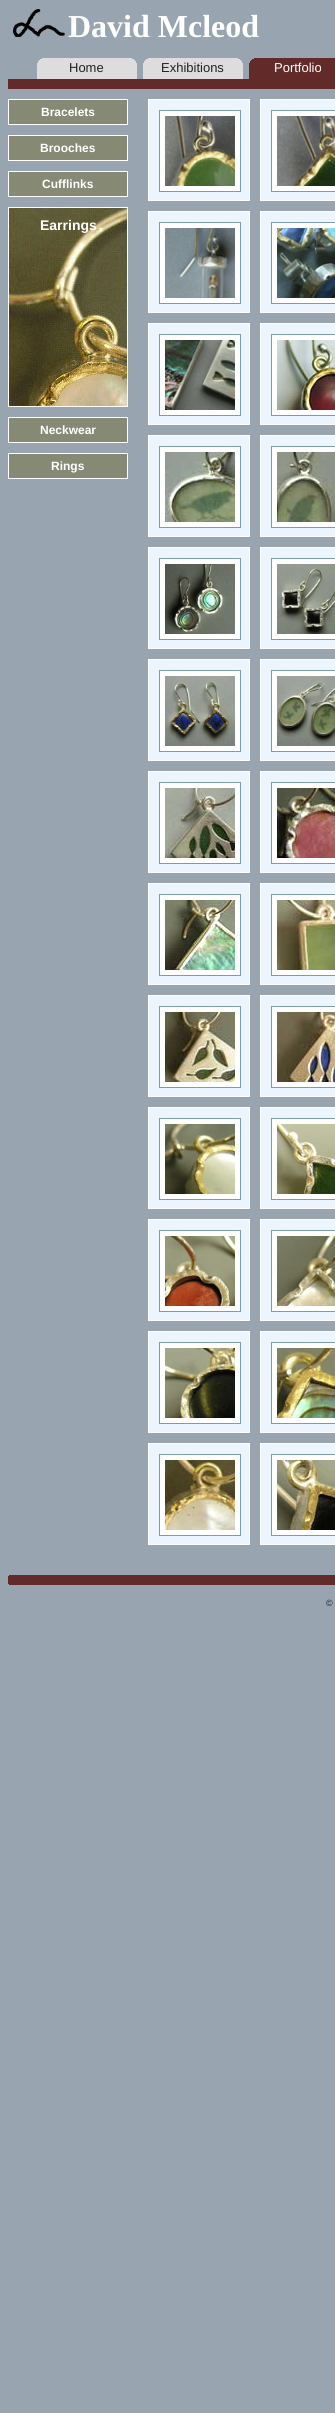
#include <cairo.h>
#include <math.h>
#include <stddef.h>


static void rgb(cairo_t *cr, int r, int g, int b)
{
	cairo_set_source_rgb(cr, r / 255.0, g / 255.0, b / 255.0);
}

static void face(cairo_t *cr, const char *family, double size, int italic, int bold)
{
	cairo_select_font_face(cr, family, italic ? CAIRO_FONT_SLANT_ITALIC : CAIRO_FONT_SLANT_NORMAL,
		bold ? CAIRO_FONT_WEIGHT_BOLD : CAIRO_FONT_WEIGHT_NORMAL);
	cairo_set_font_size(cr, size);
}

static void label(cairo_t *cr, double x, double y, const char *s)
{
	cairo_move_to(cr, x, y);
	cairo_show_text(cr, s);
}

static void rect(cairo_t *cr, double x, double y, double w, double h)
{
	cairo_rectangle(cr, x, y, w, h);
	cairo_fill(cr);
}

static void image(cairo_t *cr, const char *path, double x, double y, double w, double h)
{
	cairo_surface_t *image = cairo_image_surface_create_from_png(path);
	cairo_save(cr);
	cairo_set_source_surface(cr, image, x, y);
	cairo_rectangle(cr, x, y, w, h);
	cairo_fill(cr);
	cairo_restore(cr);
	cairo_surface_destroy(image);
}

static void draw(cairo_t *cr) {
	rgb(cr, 152, 164, 176);
	cairo_paint(cr);
	image(cr, "image0.png", 13, 9, 52, 28);
	face(cr, "Liberation Serif", 32, 0, 1);
	rgb(cr, 255, 255, 255);
	label(cr, 68, 37, "David Mcleod");
	rgb(cr, 99, 42, 42);
	rect(cr, 8, 79, 327, 10);
	image(cr, "image1.png", 37, 58, 100, 21);
	face(cr, "Liberation Sans", 13, 0, 0);
	rgb(cr, 34, 34, 34);
	label(cr, 69, 72, "Home");
	image(cr, "image1.png", 143, 58, 100, 21);
	label(cr, 161, 72, "Exhibitions");
	image(cr, "image2.png", 249, 58, 86, 21);
	rgb(cr, 255, 255, 255);
	label(cr, 274, 72, "Portfolio");
	rgb(cr, 134, 137, 116);
	cairo_rectangle(cr, 8.5, 99.5, 119, 25);
	cairo_fill_preserve(cr);
	rgb(cr, 255, 255, 255);
	cairo_set_line_width(cr, 1);
	cairo_stroke(cr);
	face(cr, "Liberation Sans", 12, 0, 1);
	label(cr, 41, 116, "Bracelets");
	rgb(cr, 134, 137, 116);
	cairo_rectangle(cr, 8.5, 135.5, 119, 25);
	cairo_fill_preserve(cr);
	rgb(cr, 255, 255, 255);
	cairo_stroke(cr);
	label(cr, 40, 152, "Brooches");
	rgb(cr, 134, 137, 116);
	cairo_rectangle(cr, 8.5, 171.5, 119, 25);
	cairo_fill_preserve(cr);
	rgb(cr, 255, 255, 255);
	cairo_stroke(cr);
	label(cr, 42, 188, "Cufflinks");
	image(cr, "image3.png", 8, 207, 120, 200);
	face(cr, "Liberation Sans", 14, 0, 1);
	label(cr, 40, 230, "Earrings");
	rgb(cr, 134, 137, 116);
	cairo_rectangle(cr, 8.5, 417.5, 119, 25);
	cairo_fill_preserve(cr);
	rgb(cr, 255, 255, 255);
	cairo_stroke(cr);
	face(cr, "Liberation Sans", 12, 0, 1);
	label(cr, 40, 434, "Neckwear");
	rgb(cr, 134, 137, 116);
	cairo_rectangle(cr, 8.5, 453.5, 119, 25);
	cairo_fill_preserve(cr);
	rgb(cr, 255, 255, 255);
	cairo_stroke(cr);
	label(cr, 51, 470, "Rings");
	rgb(cr, 236, 245, 255);
	cairo_rectangle(cr, 148.5, 99.5, 101, 101);
	cairo_fill_preserve(cr);
	rgb(cr, 255, 255, 255);
	cairo_stroke(cr);
	cairo_rectangle(cr, 159.5, 110.5, 81, 81);
	cairo_fill_preserve(cr);
	rgb(cr, 121, 155, 182);
	cairo_stroke(cr);
	image(cr, "image4.png", 165, 116, 70, 70);
	rgb(cr, 236, 245, 255);
	cairo_rectangle(cr, 260.5, 99.5, 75, 101);
	cairo_fill_preserve(cr);
	rgb(cr, 255, 255, 255);
	cairo_stroke(cr);
	cairo_rectangle(cr, 271.5, 110.5, 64, 81);
	cairo_fill_preserve(cr);
	rgb(cr, 121, 155, 182);
	cairo_stroke(cr);
	image(cr, "image5.png", 277, 116, 58, 70);
	rgb(cr, 236, 245, 255);
	cairo_rectangle(cr, 148.5, 211.5, 101, 101);
	cairo_fill_preserve(cr);
	rgb(cr, 255, 255, 255);
	cairo_stroke(cr);
	cairo_rectangle(cr, 159.5, 222.5, 81, 81);
	cairo_fill_preserve(cr);
	rgb(cr, 121, 155, 182);
	cairo_stroke(cr);
	image(cr, "image6.png", 165, 228, 70, 70);
	rgb(cr, 236, 245, 255);
	cairo_rectangle(cr, 260.5, 211.5, 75, 101);
	cairo_fill_preserve(cr);
	rgb(cr, 255, 255, 255);
	cairo_stroke(cr);
	cairo_rectangle(cr, 271.5, 222.5, 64, 81);
	cairo_fill_preserve(cr);
	rgb(cr, 121, 155, 182);
	cairo_stroke(cr);
	image(cr, "image7.png", 277, 228, 58, 70);
	rgb(cr, 236, 245, 255);
	cairo_rectangle(cr, 148.5, 323.5, 101, 101);
	cairo_fill_preserve(cr);
	rgb(cr, 255, 255, 255);
	cairo_stroke(cr);
	cairo_rectangle(cr, 159.5, 334.5, 81, 81);
	cairo_fill_preserve(cr);
	rgb(cr, 121, 155, 182);
	cairo_stroke(cr);
	image(cr, "image8.png", 165, 340, 70, 70);
	rgb(cr, 236, 245, 255);
	cairo_rectangle(cr, 260.5, 323.5, 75, 101);
	cairo_fill_preserve(cr);
	rgb(cr, 255, 255, 255);
	cairo_stroke(cr);
	cairo_rectangle(cr, 271.5, 334.5, 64, 81);
	cairo_fill_preserve(cr);
	rgb(cr, 121, 155, 182);
	cairo_stroke(cr);
	image(cr, "image9.png", 277, 340, 58, 70);
	rgb(cr, 236, 245, 255);
	cairo_rectangle(cr, 148.5, 435.5, 101, 101);
	cairo_fill_preserve(cr);
	rgb(cr, 255, 255, 255);
	cairo_stroke(cr);
	cairo_rectangle(cr, 159.5, 446.5, 81, 81);
	cairo_fill_preserve(cr);
	rgb(cr, 121, 155, 182);
	cairo_stroke(cr);
	image(cr, "image10.png", 165, 452, 70, 70);
	rgb(cr, 236, 245, 255);
	cairo_rectangle(cr, 260.5, 435.5, 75, 101);
	cairo_fill_preserve(cr);
	rgb(cr, 255, 255, 255);
	cairo_stroke(cr);
	cairo_rectangle(cr, 271.5, 446.5, 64, 81);
	cairo_fill_preserve(cr);
	rgb(cr, 121, 155, 182);
	cairo_stroke(cr);
	image(cr, "image11.png", 277, 452, 58, 70);
	rgb(cr, 236, 245, 255);
	cairo_rectangle(cr, 148.5, 547.5, 101, 101);
	cairo_fill_preserve(cr);
	rgb(cr, 255, 255, 255);
	cairo_stroke(cr);
	cairo_rectangle(cr, 159.5, 558.5, 81, 81);
	cairo_fill_preserve(cr);
	rgb(cr, 121, 155, 182);
	cairo_stroke(cr);
	image(cr, "image12.png", 165, 564, 70, 70);
	rgb(cr, 236, 245, 255);
	cairo_rectangle(cr, 260.5, 547.5, 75, 101);
	cairo_fill_preserve(cr);
	rgb(cr, 255, 255, 255);
	cairo_stroke(cr);
	cairo_rectangle(cr, 271.5, 558.5, 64, 81);
	cairo_fill_preserve(cr);
	rgb(cr, 121, 155, 182);
	cairo_stroke(cr);
	image(cr, "image13.png", 277, 564, 58, 70);
	rgb(cr, 236, 245, 255);
	cairo_rectangle(cr, 148.5, 659.5, 101, 101);
	cairo_fill_preserve(cr);
	rgb(cr, 255, 255, 255);
	cairo_stroke(cr);
	cairo_rectangle(cr, 159.5, 670.5, 81, 81);
	cairo_fill_preserve(cr);
	rgb(cr, 121, 155, 182);
	cairo_stroke(cr);
	image(cr, "image14.png", 165, 676, 70, 70);
	rgb(cr, 236, 245, 255);
	cairo_rectangle(cr, 260.5, 659.5, 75, 101);
	cairo_fill_preserve(cr);
	rgb(cr, 255, 255, 255);
	cairo_stroke(cr);
	cairo_rectangle(cr, 271.5, 670.5, 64, 81);
	cairo_fill_preserve(cr);
	rgb(cr, 121, 155, 182);
	cairo_stroke(cr);
	image(cr, "image15.png", 277, 676, 58, 70);
	rgb(cr, 236, 245, 255);
	cairo_rectangle(cr, 148.5, 771.5, 101, 101);
	cairo_fill_preserve(cr);
	rgb(cr, 255, 255, 255);
	cairo_stroke(cr);
	cairo_rectangle(cr, 159.5, 782.5, 81, 81);
	cairo_fill_preserve(cr);
	rgb(cr, 121, 155, 182);
	cairo_stroke(cr);
	image(cr, "image16.png", 165, 788, 70, 70);
	rgb(cr, 236, 245, 255);
	cairo_rectangle(cr, 260.5, 771.5, 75, 101);
	cairo_fill_preserve(cr);
	rgb(cr, 255, 255, 255);
	cairo_stroke(cr);
	cairo_rectangle(cr, 271.5, 782.5, 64, 81);
	cairo_fill_preserve(cr);
	rgb(cr, 121, 155, 182);
	cairo_stroke(cr);
	image(cr, "image17.png", 277, 788, 58, 70);
	rgb(cr, 236, 245, 255);
	cairo_rectangle(cr, 148.5, 883.5, 101, 101);
	cairo_fill_preserve(cr);
	rgb(cr, 255, 255, 255);
	cairo_stroke(cr);
	cairo_rectangle(cr, 159.5, 894.5, 81, 81);
	cairo_fill_preserve(cr);
	rgb(cr, 121, 155, 182);
	cairo_stroke(cr);
	image(cr, "image18.png", 165, 900, 70, 70);
	rgb(cr, 236, 245, 255);
	cairo_rectangle(cr, 260.5, 883.5, 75, 101);
	cairo_fill_preserve(cr);
	rgb(cr, 255, 255, 255);
	cairo_stroke(cr);
	cairo_rectangle(cr, 271.5, 894.5, 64, 81);
	cairo_fill_preserve(cr);
	rgb(cr, 121, 155, 182);
	cairo_stroke(cr);
	image(cr, "image19.png", 277, 900, 58, 70);
	rgb(cr, 236, 245, 255);
	cairo_rectangle(cr, 148.5, 995.5, 101, 101);
	cairo_fill_preserve(cr);
	rgb(cr, 255, 255, 255);
	cairo_stroke(cr);
	cairo_rectangle(cr, 159.5, 1006.5, 81, 81);
	cairo_fill_preserve(cr);
	rgb(cr, 121, 155, 182);
	cairo_stroke(cr);
	image(cr, "image20.png", 165, 1012, 70, 70);
	rgb(cr, 236, 245, 255);
	cairo_rectangle(cr, 260.5, 995.5, 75, 101);
	cairo_fill_preserve(cr);
	rgb(cr, 255, 255, 255);
	cairo_stroke(cr);
	cairo_rectangle(cr, 271.5, 1006.5, 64, 81);
	cairo_fill_preserve(cr);
	rgb(cr, 121, 155, 182);
	cairo_stroke(cr);
	image(cr, "image21.png", 277, 1012, 58, 70);
	rgb(cr, 236, 245, 255);
	cairo_rectangle(cr, 148.5, 1107.5, 101, 101);
	cairo_fill_preserve(cr);
	rgb(cr, 255, 255, 255);
	cairo_stroke(cr);
	cairo_rectangle(cr, 159.5, 1118.5, 81, 81);
	cairo_fill_preserve(cr);
	rgb(cr, 121, 155, 182);
	cairo_stroke(cr);
	image(cr, "image22.png", 165, 1124, 70, 70);
	rgb(cr, 236, 245, 255);
	cairo_rectangle(cr, 260.5, 1107.5, 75, 101);
	cairo_fill_preserve(cr);
	rgb(cr, 255, 255, 255);
	cairo_stroke(cr);
	cairo_rectangle(cr, 271.5, 1118.5, 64, 81);
	cairo_fill_preserve(cr);
	rgb(cr, 121, 155, 182);
	cairo_stroke(cr);
	image(cr, "image23.png", 277, 1124, 58, 70);
	rgb(cr, 236, 245, 255);
	cairo_rectangle(cr, 148.5, 1219.5, 101, 101);
	cairo_fill_preserve(cr);
	rgb(cr, 255, 255, 255);
	cairo_stroke(cr);
	cairo_rectangle(cr, 159.5, 1230.5, 81, 81);
	cairo_fill_preserve(cr);
	rgb(cr, 121, 155, 182);
	cairo_stroke(cr);
	image(cr, "image24.png", 165, 1236, 70, 70);
	rgb(cr, 236, 245, 255);
	cairo_rectangle(cr, 260.5, 1219.5, 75, 101);
	cairo_fill_preserve(cr);
	rgb(cr, 255, 255, 255);
	cairo_stroke(cr);
	cairo_rectangle(cr, 271.5, 1230.5, 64, 81);
	cairo_fill_preserve(cr);
	rgb(cr, 121, 155, 182);
	cairo_stroke(cr);
	image(cr, "image25.png", 277, 1236, 58, 70);
	rgb(cr, 236, 245, 255);
	cairo_rectangle(cr, 148.5, 1331.5, 101, 101);
	cairo_fill_preserve(cr);
	rgb(cr, 255, 255, 255);
	cairo_stroke(cr);
	cairo_rectangle(cr, 159.5, 1342.5, 81, 81);
	cairo_fill_preserve(cr);
	rgb(cr, 121, 155, 182);
	cairo_stroke(cr);
	image(cr, "image26.png", 165, 1348, 70, 70);
	rgb(cr, 236, 245, 255);
	cairo_rectangle(cr, 260.5, 1331.5, 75, 101);
	cairo_fill_preserve(cr);
	rgb(cr, 255, 255, 255);
	cairo_stroke(cr);
	cairo_rectangle(cr, 271.5, 1342.5, 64, 81);
	cairo_fill_preserve(cr);
	rgb(cr, 121, 155, 182);
	cairo_stroke(cr);
	image(cr, "image27.png", 277, 1348, 58, 70);
	rgb(cr, 236, 245, 255);
	cairo_rectangle(cr, 148.5, 1443.5, 101, 101);
	cairo_fill_preserve(cr);
	rgb(cr, 255, 255, 255);
	cairo_stroke(cr);
	cairo_rectangle(cr, 159.5, 1454.5, 81, 81);
	cairo_fill_preserve(cr);
	rgb(cr, 121, 155, 182);
	cairo_stroke(cr);
	image(cr, "image28.png", 165, 1460, 70, 70);
	rgb(cr, 236, 245, 255);
	cairo_rectangle(cr, 260.5, 1443.5, 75, 101);
	cairo_fill_preserve(cr);
	rgb(cr, 255, 255, 255);
	cairo_stroke(cr);
	cairo_rectangle(cr, 271.5, 1454.5, 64, 81);
	cairo_fill_preserve(cr);
	rgb(cr, 121, 155, 182);
	cairo_stroke(cr);
	image(cr, "image29.png", 277, 1460, 58, 70);
	rgb(cr, 99, 42, 42);
	rect(cr, 8, 1575, 327, 10);
	image(cr, "image30.png", 8, 1575, 1, 10);
	face(cr, "Liberation Sans", 9, 0, 0);
	rgb(cr, 34, 34, 34);
	label(cr, 326, 1606, "©");
}

int main(void) {
	cairo_surface_t *surface = cairo_image_surface_create(CAIRO_FORMAT_RGB24, 335, 2413);
	cairo_t *cr = cairo_create(surface);
	cairo_font_options_t *options = cairo_font_options_create();
	cairo_font_options_set_hint_metrics(options, CAIRO_HINT_METRICS_OFF);
	cairo_font_options_set_hint_style(options, CAIRO_HINT_STYLE_NONE);
	cairo_set_font_options(cr, options);
	cairo_set_miter_limit(cr, 4);
	draw(cr);
	cairo_surface_write_to_png(surface, "render.png");
	cairo_font_options_destroy(options);
	cairo_destroy(cr);
	cairo_surface_destroy(surface);
	return 0;
}
